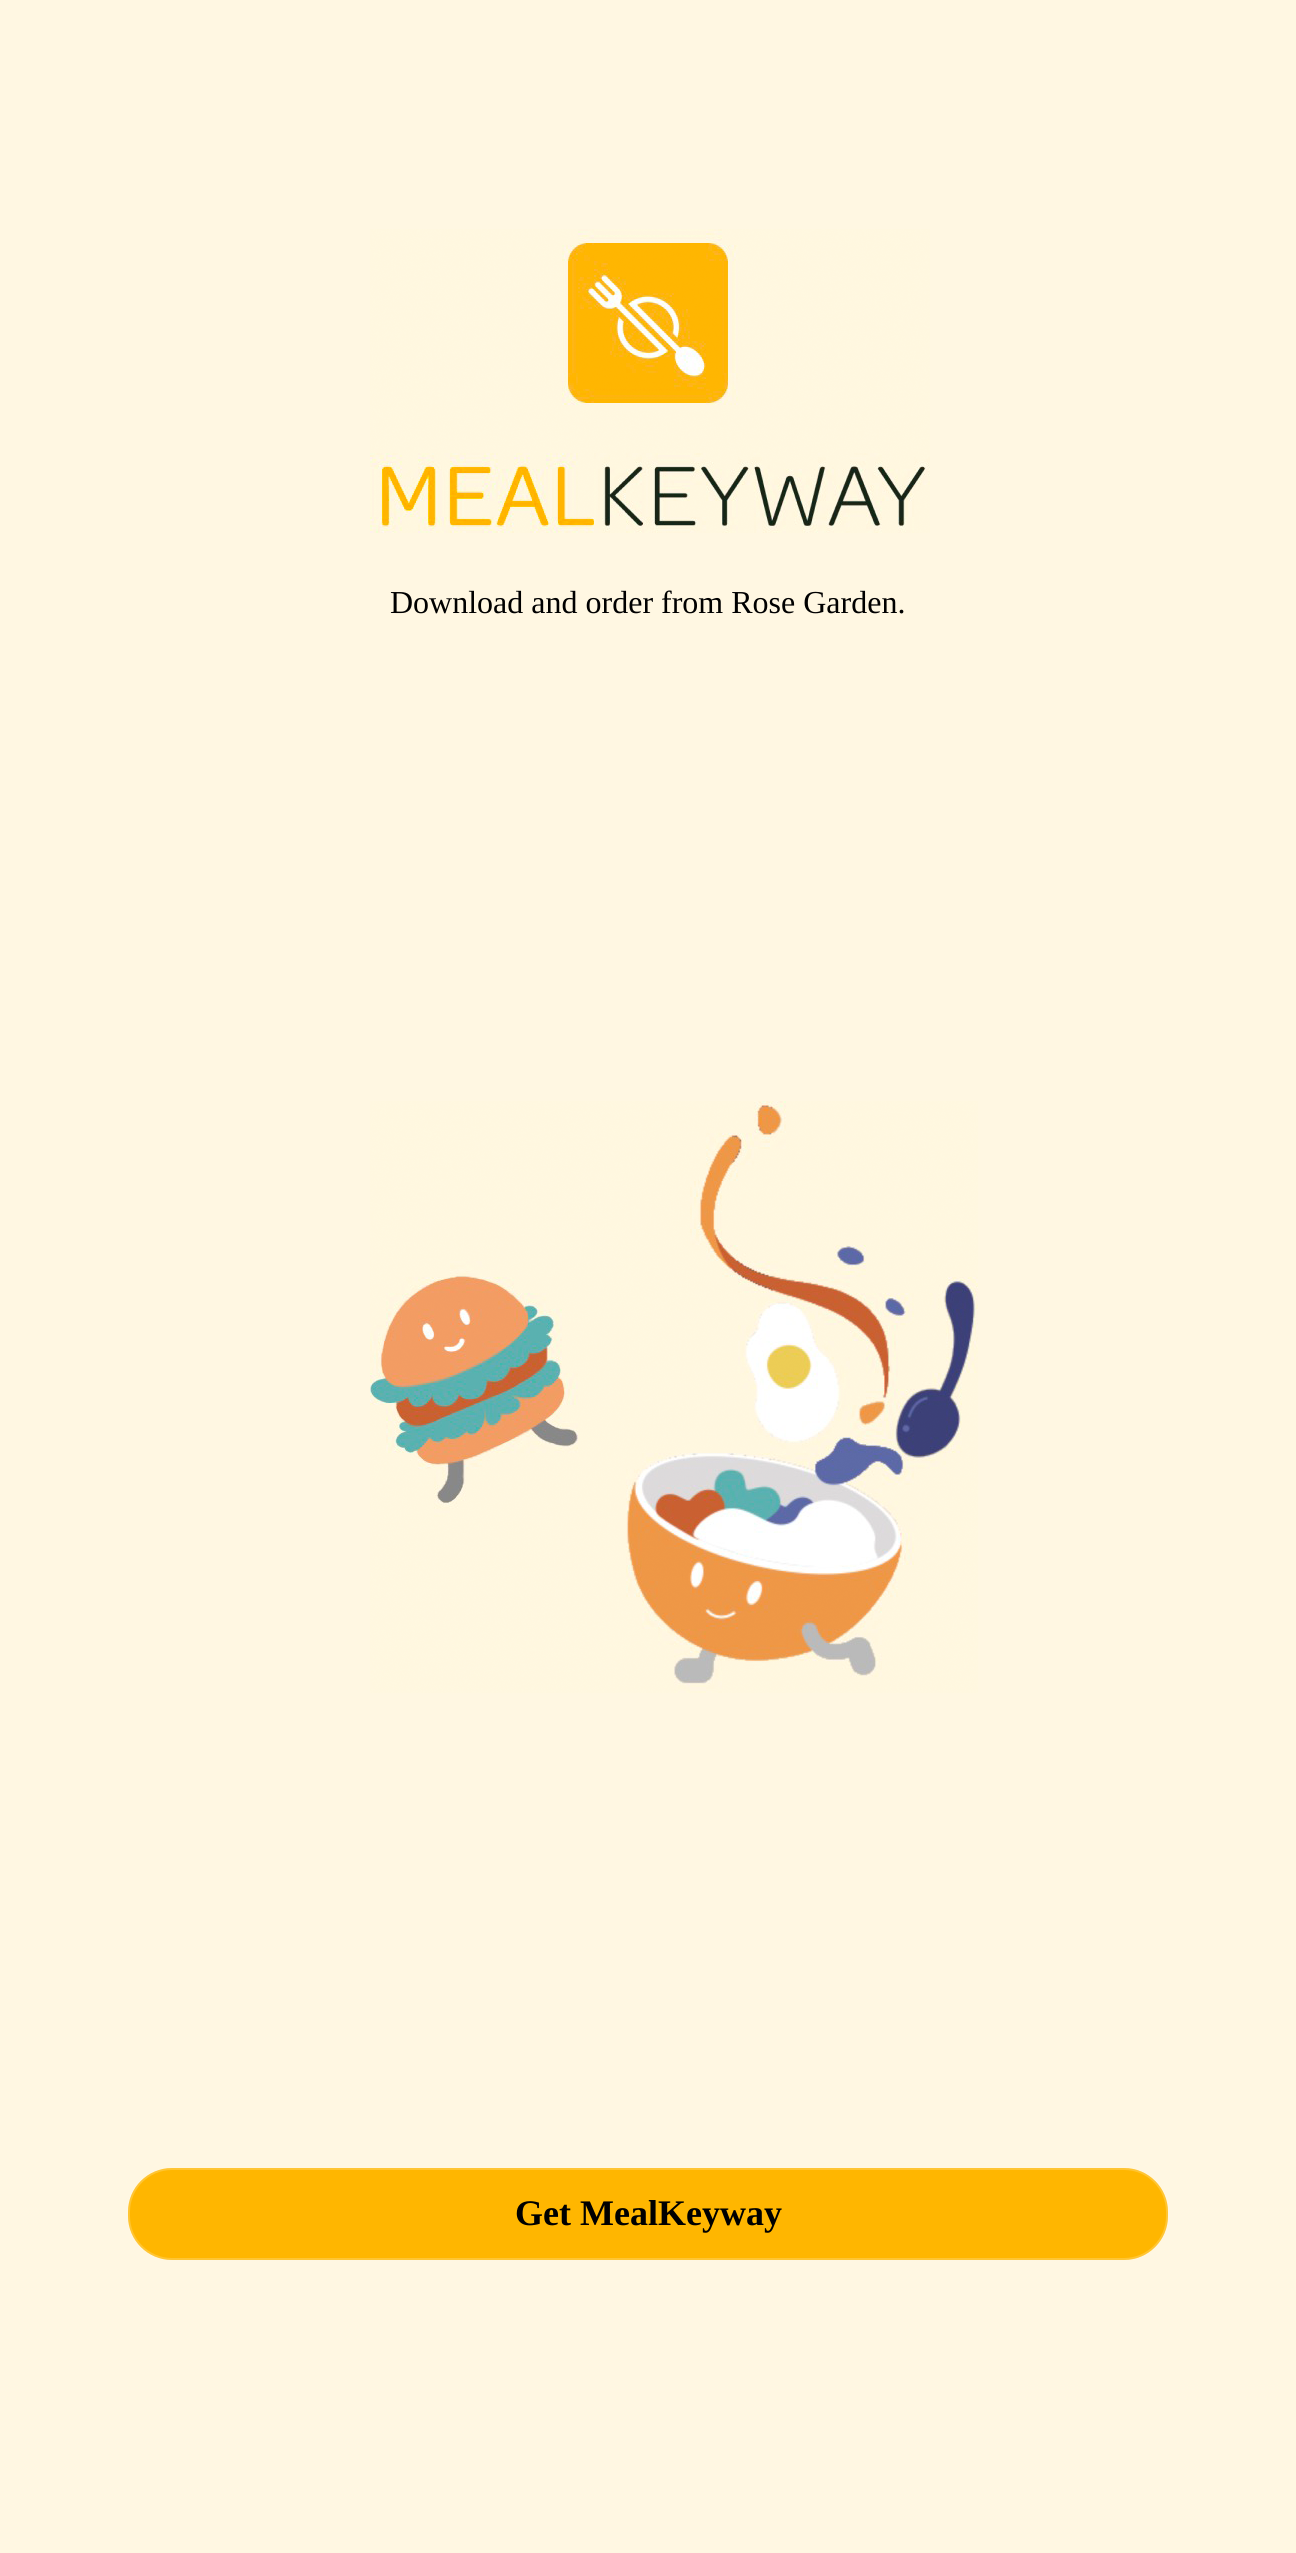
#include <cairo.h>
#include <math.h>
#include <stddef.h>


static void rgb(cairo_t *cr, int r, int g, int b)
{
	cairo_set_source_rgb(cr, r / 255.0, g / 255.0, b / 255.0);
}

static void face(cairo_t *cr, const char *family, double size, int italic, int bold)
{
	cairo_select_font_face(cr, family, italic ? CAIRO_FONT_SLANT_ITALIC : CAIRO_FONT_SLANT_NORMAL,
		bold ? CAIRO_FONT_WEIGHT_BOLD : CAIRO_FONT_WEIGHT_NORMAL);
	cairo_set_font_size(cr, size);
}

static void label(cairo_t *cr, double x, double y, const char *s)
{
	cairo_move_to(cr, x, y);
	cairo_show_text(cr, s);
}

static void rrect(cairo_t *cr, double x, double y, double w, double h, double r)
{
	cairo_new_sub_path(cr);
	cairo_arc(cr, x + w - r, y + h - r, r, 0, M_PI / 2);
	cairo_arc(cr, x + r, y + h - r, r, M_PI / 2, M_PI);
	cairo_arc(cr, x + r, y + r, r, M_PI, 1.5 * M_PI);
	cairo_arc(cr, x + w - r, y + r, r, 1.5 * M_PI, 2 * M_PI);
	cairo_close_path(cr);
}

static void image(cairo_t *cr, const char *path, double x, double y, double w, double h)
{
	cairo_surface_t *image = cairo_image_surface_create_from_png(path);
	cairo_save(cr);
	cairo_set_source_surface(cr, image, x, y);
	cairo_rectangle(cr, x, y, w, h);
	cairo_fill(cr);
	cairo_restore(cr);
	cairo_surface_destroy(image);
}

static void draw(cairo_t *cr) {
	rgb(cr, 255, 247, 226);
	cairo_paint(cr);
	image(cr, "image0.png", 370, 229, 560, 304);
	face(cr, "Liberation Serif", 32, 0, 0);
	rgb(cr, 0, 0, 0);
	label(cr, 390, 613, "Download and order from Rose Garden.");
	image(cr, "image1.png", 370, 1101, 608, 592);
	rgb(cr, 255, 182, 0);
	rrect(cr, 128, 2168, 1040, 92, 44);
	cairo_fill(cr);
	rrect(cr, 129, 2169, 1038, 90, 43);
	cairo_set_source_rgba(cr, 1, 1, 1, 0.2);
	cairo_stroke(cr);
	face(cr, "Liberation Serif", 36, 0, 1);
	rgb(cr, 0, 0, 0);
	label(cr, 515, 2225, "Get MealKeyway");
}

int main(void) {
	cairo_surface_t *surface = cairo_image_surface_create(CAIRO_FORMAT_RGB24, 1296, 2553);
	cairo_t *cr = cairo_create(surface);
	cairo_font_options_t *options = cairo_font_options_create();
	cairo_font_options_set_hint_metrics(options, CAIRO_HINT_METRICS_OFF);
	cairo_font_options_set_hint_style(options, CAIRO_HINT_STYLE_NONE);
	cairo_set_font_options(cr, options);
	cairo_set_miter_limit(cr, 4);
	draw(cr);
	cairo_surface_write_to_png(surface, "render.png");
	cairo_font_options_destroy(options);
	cairo_destroy(cr);
	cairo_surface_destroy(surface);
	return 0;
}
